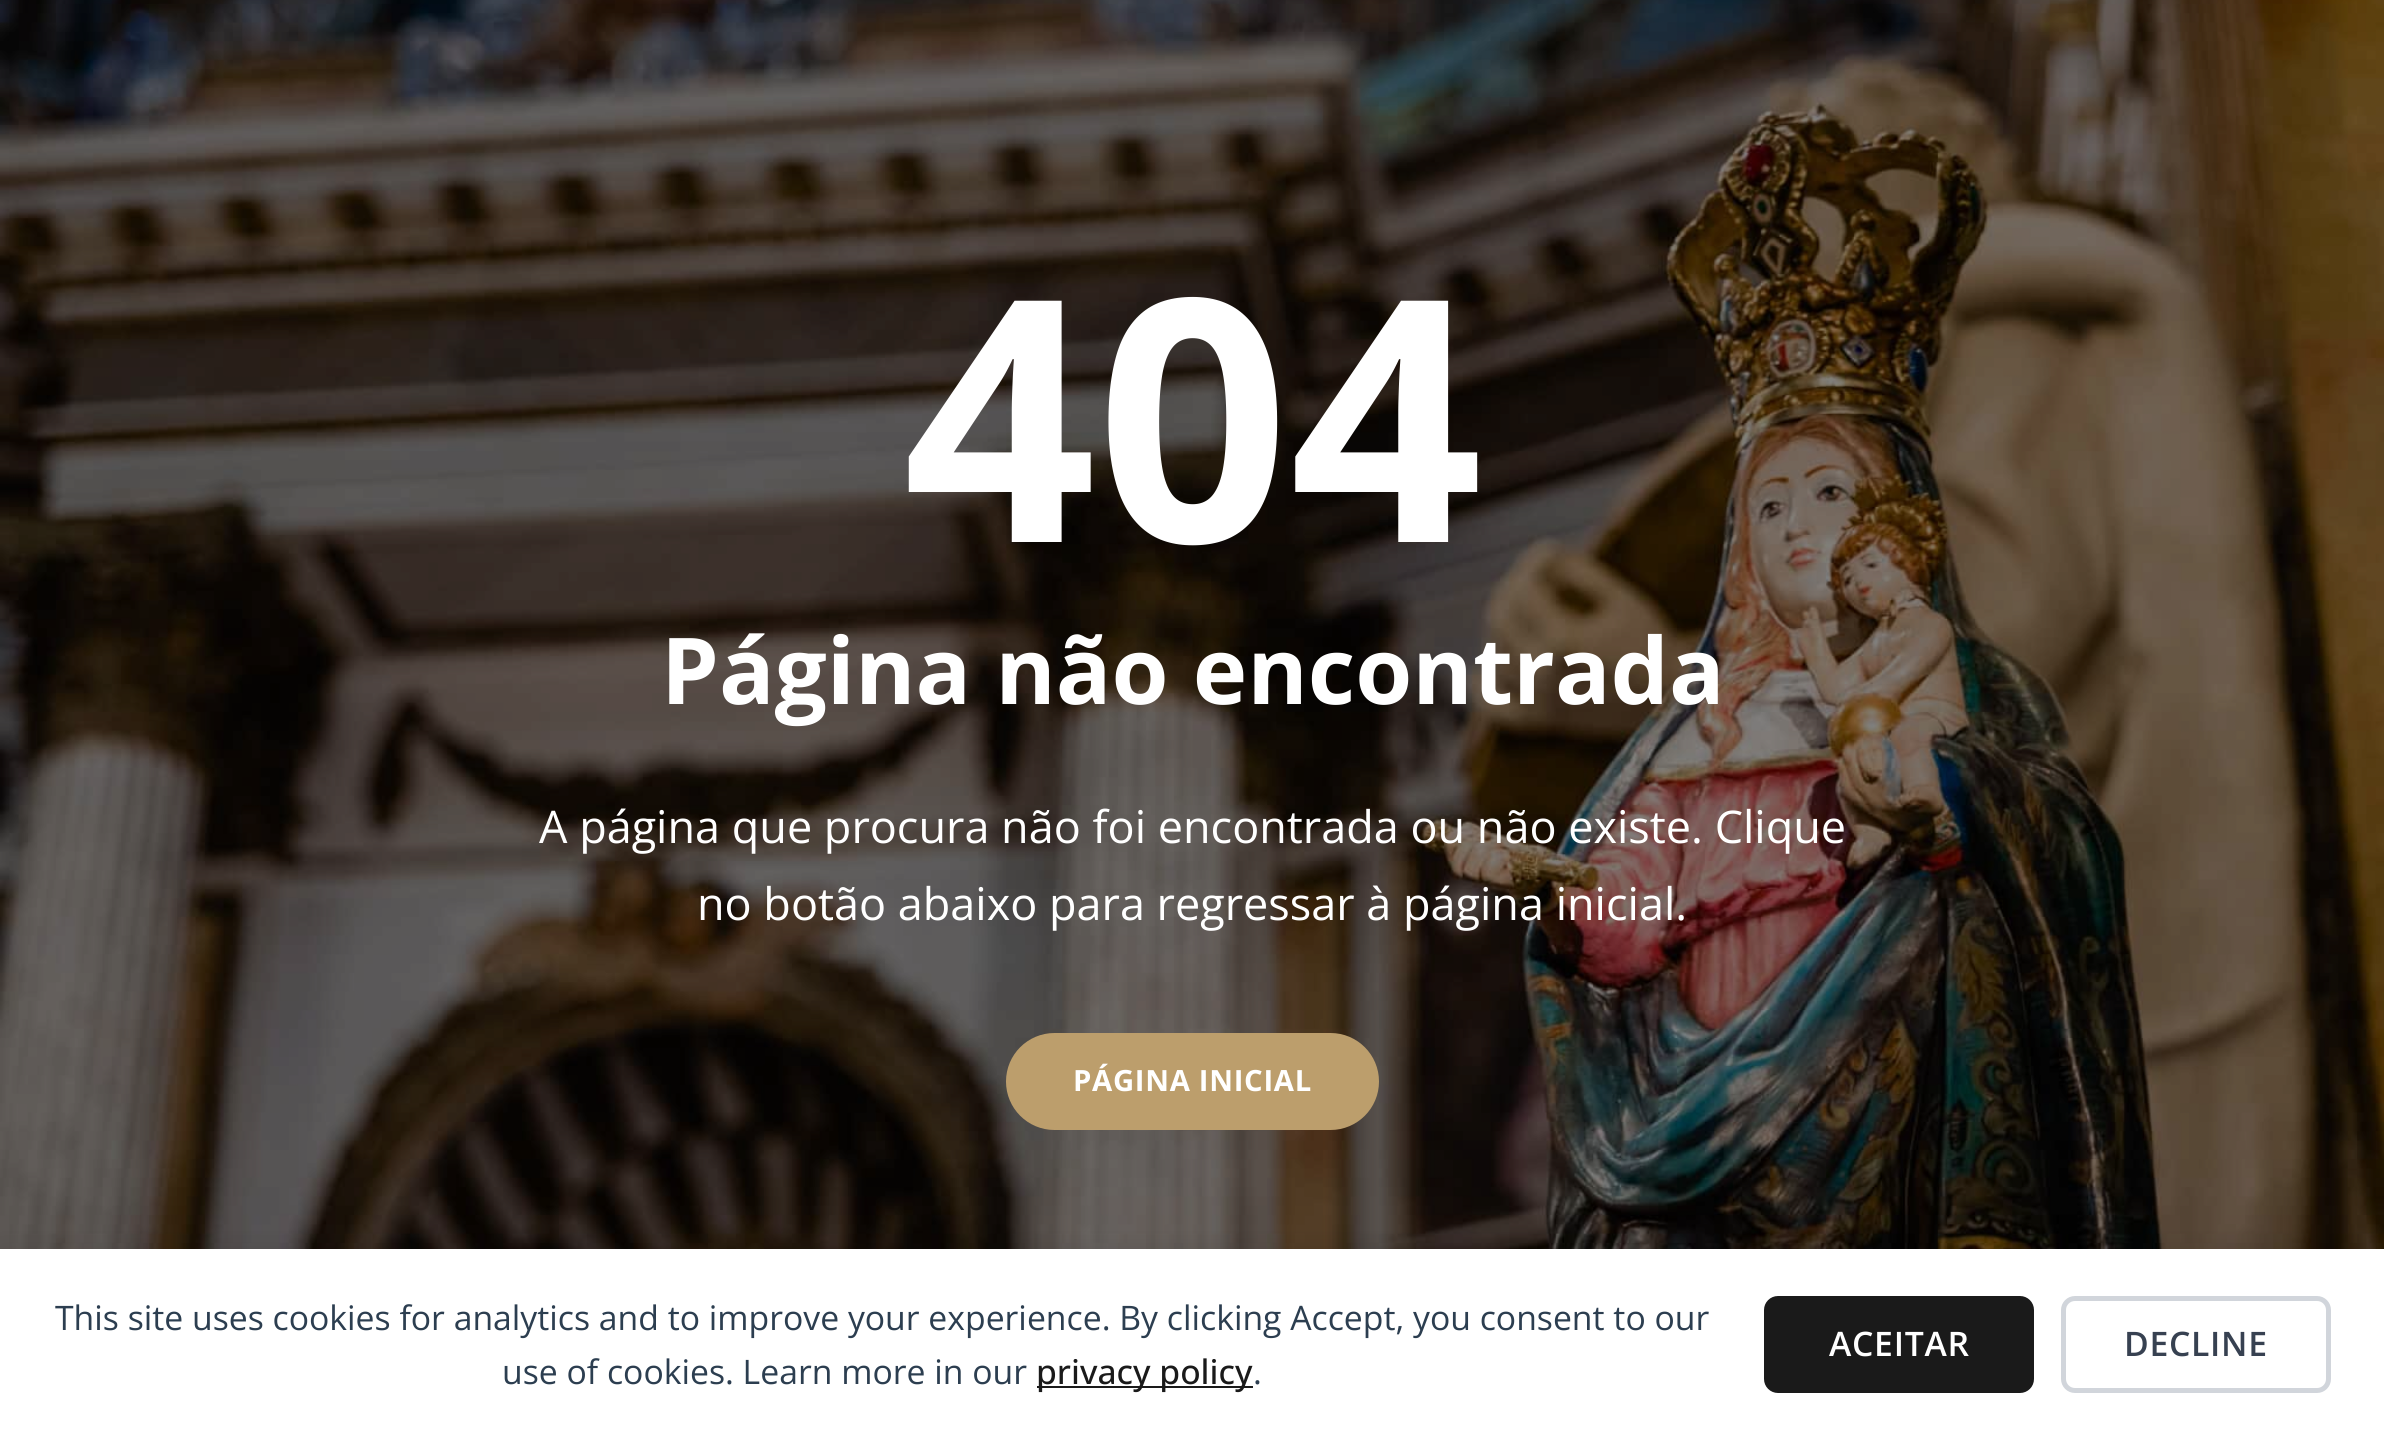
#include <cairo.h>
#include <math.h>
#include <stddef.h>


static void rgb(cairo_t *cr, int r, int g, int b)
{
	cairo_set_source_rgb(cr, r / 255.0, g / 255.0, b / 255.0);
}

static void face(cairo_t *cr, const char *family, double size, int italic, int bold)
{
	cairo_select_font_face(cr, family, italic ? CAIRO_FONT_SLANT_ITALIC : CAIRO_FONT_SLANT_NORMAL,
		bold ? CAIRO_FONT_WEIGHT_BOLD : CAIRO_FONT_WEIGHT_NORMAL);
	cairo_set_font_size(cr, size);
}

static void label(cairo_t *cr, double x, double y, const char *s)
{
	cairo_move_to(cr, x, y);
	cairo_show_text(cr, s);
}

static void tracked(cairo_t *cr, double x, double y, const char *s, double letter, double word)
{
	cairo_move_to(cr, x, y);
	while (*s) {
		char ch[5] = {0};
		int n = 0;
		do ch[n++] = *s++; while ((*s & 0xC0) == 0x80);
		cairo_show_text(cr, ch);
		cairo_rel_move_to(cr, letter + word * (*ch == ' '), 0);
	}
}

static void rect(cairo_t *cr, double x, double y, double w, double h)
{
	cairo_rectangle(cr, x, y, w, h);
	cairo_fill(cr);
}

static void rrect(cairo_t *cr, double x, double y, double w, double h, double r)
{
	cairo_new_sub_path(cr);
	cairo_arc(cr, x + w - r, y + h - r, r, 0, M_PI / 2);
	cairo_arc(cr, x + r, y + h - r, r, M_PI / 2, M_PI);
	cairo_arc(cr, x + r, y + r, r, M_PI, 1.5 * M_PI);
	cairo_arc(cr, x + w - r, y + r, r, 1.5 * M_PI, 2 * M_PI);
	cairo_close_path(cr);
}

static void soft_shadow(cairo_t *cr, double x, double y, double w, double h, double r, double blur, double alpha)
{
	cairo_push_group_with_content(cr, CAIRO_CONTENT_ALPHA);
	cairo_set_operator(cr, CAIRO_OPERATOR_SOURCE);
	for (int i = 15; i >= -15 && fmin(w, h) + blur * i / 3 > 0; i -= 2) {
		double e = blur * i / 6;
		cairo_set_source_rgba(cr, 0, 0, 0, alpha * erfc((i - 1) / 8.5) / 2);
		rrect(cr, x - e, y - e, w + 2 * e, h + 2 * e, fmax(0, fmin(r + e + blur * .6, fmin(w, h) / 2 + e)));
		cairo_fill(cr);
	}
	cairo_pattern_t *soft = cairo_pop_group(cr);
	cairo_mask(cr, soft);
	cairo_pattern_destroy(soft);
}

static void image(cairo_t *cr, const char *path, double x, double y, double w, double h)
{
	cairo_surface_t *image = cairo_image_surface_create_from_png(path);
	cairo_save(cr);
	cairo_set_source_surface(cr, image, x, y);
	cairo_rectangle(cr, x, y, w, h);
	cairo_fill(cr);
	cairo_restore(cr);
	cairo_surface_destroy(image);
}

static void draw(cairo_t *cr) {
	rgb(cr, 255, 255, 255);
	cairo_paint(cr);
	image(cr, "image0.png", 0, 0, 2384, 1249);
	face(cr, "Open Sans", 338, 0, 1);
	rgb(cr, 255, 255, 255);
	label(cr, 903, 542, "404");
	face(cr, "Open Sans", 92.25, 0, 1);
	label(cr, 661, 704, "Página não encontrada");
	face(cr, "Open Sans", 45, 0, 0);
	label(cr, 539, 843, "A página que procura não foi encontrada ou não existe. Clique");
	label(cr, 697, 920, "no botão abaixo para regressar à página inicial.");
	rgb(cr, 188, 158, 108);
	rrect(cr, 1006, 1033, 373, 97, 48.5);
	cairo_fill(cr);
	face(cr, "Open Sans", 29.25, 0, 1);
	rgb(cr, 255, 255, 255);
	tracked(cr, 1073, 1091, "PÁGINA INICIAL", 0.7, 0);
	rgb(cr, 0, 0, 0);
	soft_shadow(cr, 0, 1244, 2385, 189, 0, 11, 0.08);
	rgb(cr, 255, 255, 255);
	rect(cr, 0, 1249, 2384, 188);
	face(cr, "Open Sans", 33.75, 0, 0);
	rgb(cr, 44, 62, 80);
	label(cr, 55, 1330, "This site uses cookies for analytics and to improve your experience. By clicking Accept, you consent to our");
	label(cr, 502, 1384, "use of cookies. Learn more in our");
	rgb(cr, 26, 26, 26);
	rect(cr, 1037, 1386, 216, 2);
	face(cr, "Open Sans Medium", 33.75, 0, 0);
	label(cr, 1036, 1384, "privacy policy");
	face(cr, "Open Sans", 33.75, 0, 0);
	rgb(cr, 44, 62, 80);
	label(cr, 1253, 1384, ".");
	rgb(cr, 26, 26, 26);
	rrect(cr, 1764, 1296, 270, 97, 14);
	cairo_fill(cr);
	face(cr, "Open Sans SemiBold", 33.75, 0, 0);
	rgb(cr, 255, 255, 255);
	tracked(cr, 1829, 1356, "ACEITAR", 0.7, 0);
	rrect(cr, 2063.5, 1298.5, 265, 92, 11.5);
	rgb(cr, 209, 213, 219);
	cairo_set_line_width(cr, 5);
	cairo_stroke(cr);
	rgb(cr, 55, 65, 81);
	tracked(cr, 2124, 1356, "DECLINE", 0.7, 0);
}

int main(void) {
	cairo_surface_t *surface = cairo_image_surface_create(CAIRO_FORMAT_RGB24, 2384, 1437);
	cairo_t *cr = cairo_create(surface);
	cairo_font_options_t *options = cairo_font_options_create();
	cairo_font_options_set_hint_metrics(options, CAIRO_HINT_METRICS_OFF);
	cairo_font_options_set_hint_style(options, CAIRO_HINT_STYLE_NONE);
	cairo_set_font_options(cr, options);
	cairo_set_miter_limit(cr, 4);
	draw(cr);
	cairo_surface_write_to_png(surface, "render.png");
	cairo_font_options_destroy(options);
	cairo_destroy(cr);
	cairo_surface_destroy(surface);
	return 0;
}
